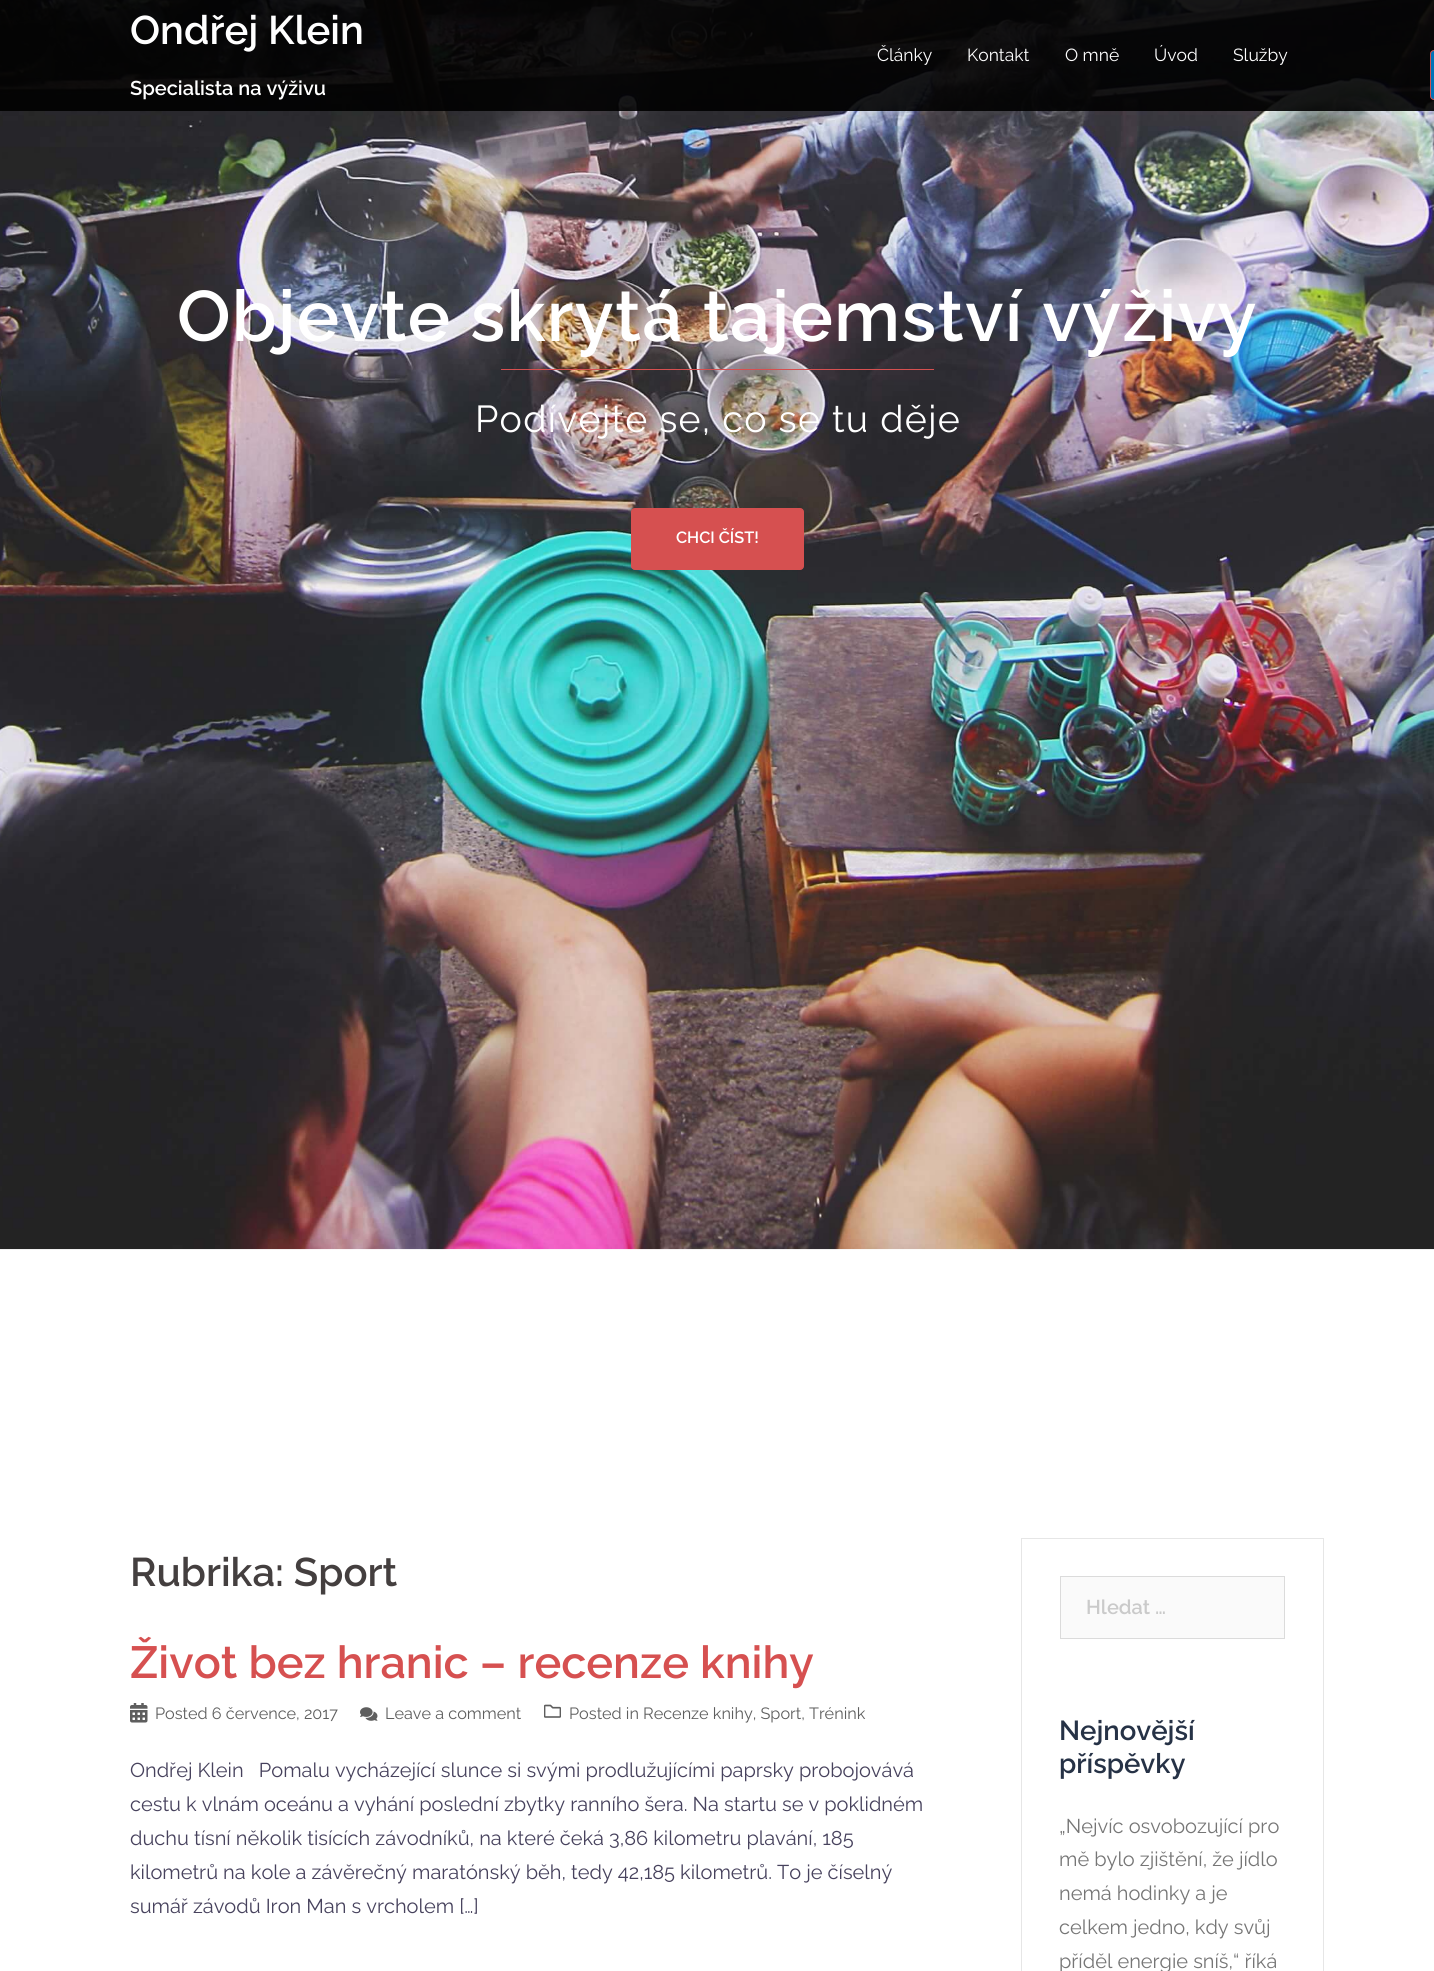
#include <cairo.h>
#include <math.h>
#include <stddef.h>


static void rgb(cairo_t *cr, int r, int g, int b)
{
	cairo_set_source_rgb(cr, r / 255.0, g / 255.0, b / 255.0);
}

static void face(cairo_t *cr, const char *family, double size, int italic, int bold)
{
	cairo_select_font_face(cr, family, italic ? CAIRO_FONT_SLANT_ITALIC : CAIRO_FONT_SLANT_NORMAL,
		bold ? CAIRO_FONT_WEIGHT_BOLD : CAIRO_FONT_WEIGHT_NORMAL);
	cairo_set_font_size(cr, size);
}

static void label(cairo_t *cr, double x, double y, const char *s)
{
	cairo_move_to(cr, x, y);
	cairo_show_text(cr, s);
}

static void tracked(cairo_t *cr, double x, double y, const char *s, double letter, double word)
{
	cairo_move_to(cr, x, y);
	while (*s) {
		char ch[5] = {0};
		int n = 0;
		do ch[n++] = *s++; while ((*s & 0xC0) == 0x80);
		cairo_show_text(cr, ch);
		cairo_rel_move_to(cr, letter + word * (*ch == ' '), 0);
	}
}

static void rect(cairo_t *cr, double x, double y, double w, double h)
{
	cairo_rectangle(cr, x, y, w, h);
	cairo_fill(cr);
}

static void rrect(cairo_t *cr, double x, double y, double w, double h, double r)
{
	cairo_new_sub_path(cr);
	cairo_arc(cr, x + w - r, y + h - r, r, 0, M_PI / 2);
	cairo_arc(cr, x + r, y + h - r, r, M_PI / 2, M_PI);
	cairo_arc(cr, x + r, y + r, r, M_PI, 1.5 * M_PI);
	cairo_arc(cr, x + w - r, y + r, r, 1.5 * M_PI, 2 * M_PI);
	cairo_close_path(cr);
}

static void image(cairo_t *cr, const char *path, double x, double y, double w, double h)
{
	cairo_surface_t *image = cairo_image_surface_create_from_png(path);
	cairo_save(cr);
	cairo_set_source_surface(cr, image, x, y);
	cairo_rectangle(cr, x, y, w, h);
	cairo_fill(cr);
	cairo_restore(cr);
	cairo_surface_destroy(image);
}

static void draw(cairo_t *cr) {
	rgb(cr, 255, 255, 255);
	cairo_paint(cr);
	image(cr, "image0.png", 0, 0, 1434, 1250);
	cairo_set_source_rgba(cr, 0, 0, 0, 0.9);
	rect(cr, 0, 0, 1434, 111);
	face(cr, "Raleway SemiBold", 40, 0, 0);
	rgb(cr, 255, 255, 255);
	label(cr, 130, 44, "Ondřej Klein");
	face(cr, "Raleway SemiBold", 20, 0, 0);
	label(cr, 130, 95, "Specialista na výživu");
	face(cr, "Raleway", 17.5, 0, 0);
	label(cr, 877, 61, "Články");
	label(cr, 967, 61, "Kontakt");
	label(cr, 1065, 61, "O mně");
	label(cr, 1154, 61, "Úvod");
	label(cr, 1233, 61, "Služby");
	face(cr, "Raleway SemiBold", 71.25, 0, 0);
	tracked(cr, 177, 341, "Objevte skrytá tajemství výživy", 1.25, 0);
	rgb(cr, 214, 80, 80);
	rect(cr, 501, 369, 433, 1);
	face(cr, "Raleway", 37.5, 0, 0);
	rgb(cr, 255, 255, 255);
	tracked(cr, 475, 432, "Podívejte se, co se tu děje", 1.25, 0);
	rgb(cr, 214, 80, 80);
	rrect(cr, 631.5, 508.5, 172, 61, 3.5);
	cairo_fill_preserve(cr);
	cairo_set_line_width(cr, 1);
	cairo_stroke(cr);
	face(cr, "Raleway SemiBold", 16.25, 0, 0);
	rgb(cr, 255, 255, 255);
	label(cr, 676, 543, "CHCI ČÍST!");
	face(cr, "Raleway SemiBold", 40, 0, 0);
	rgb(cr, 68, 63, 63);
	label(cr, 130, 1586, "Rubrika: Sport");
	face(cr, "Raleway SemiBold", 45, 0, 0);
	rgb(cr, 214, 80, 80);
	label(cr, 130, 1678, "Život bez hranic – recenze knihy");
	image(cr, "image1.png", 130, 1703, 18, 20);
	face(cr, "Raleway", 16.25, 0, 0);
	rgb(cr, 94, 94, 94);
	label(cr, 155, 1719, "Posted 6 července, 2017");
	image(cr, "image2.png", 360, 1707, 18, 14);
	label(cr, 385, 1719, "Leave a comment");
	image(cr, "image3.png", 544, 1704, 17, 14);
	label(cr, 569, 1719, "Posted in Recenze knihy, Sport, Trénink");
	face(cr, "Raleway", 20, 0, 0);
	rgb(cr, 71, 66, 93);
	label(cr, 130, 1777, "Ondřej Klein   Pomalu vycházející slunce si svými prodlužujícími paprsky probojovává");
	label(cr, 130, 1811, "cestu k vlnám oceánu a vyhání poslední zbytky ranního šera. Na startu se v poklidném");
	label(cr, 130, 1845, "duchu tísní několik tisících závodníků, na které čeká 3,86 kilometru plavání, 185");
	label(cr, 130, 1879, "kilometrů na kole a závěrečný maratónský běh, tedy 42,185 kilometrů. To je číselný");
	label(cr, 130, 1913, "sumář závodů Iron Man s vrcholem […]");
	cairo_rectangle(cr, 1021.5, 1538.5, 302, 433);
	rgb(cr, 230, 230, 230);
	cairo_stroke(cr);
	rgb(cr, 250, 250, 250);
	cairo_rectangle(cr, 1060.5, 1576.5, 224, 62);
	cairo_fill_preserve(cr);
	rgb(cr, 219, 219, 219);
	cairo_stroke(cr);
	face(cr, "Raleway SemiBold", 20, 0, 0);
	rgb(cr, 202, 202, 202);
	label(cr, 1086, 1614, "Hledat …");
	face(cr, "Raleway SemiBold", 27.5, 0, 0);
	rgb(cr, 38, 50, 70);
	label(cr, 1059, 1740, "Nejnovější");
	label(cr, 1059, 1773, "příspěvky");
	face(cr, "Raleway", 20, 0, 0);
	rgb(cr, 118, 118, 118);
	label(cr, 1059, 1833, "„Nejvíc osvobozující pro");
	label(cr, 1059, 1866, "mě bylo zjištění, že jídlo");
	label(cr, 1059, 1900, "nemá hodinky a je");
	label(cr, 1059, 1934, "celkem jedno, kdy svůj");
	label(cr, 1059, 1968, "příděl energie sníš,“ říká");
	rgb(cr, 0, 115, 183);
	cairo_new_path(cr);
	cairo_move_to(cr, 1434, 50.5);
	cairo_line_to(cr, 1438.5, 50.5);
	cairo_line_to(cr, 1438.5, 99.5);
	cairo_line_to(cr, 1434, 99.5);
	cairo_curve_to(cr, 1432, 99.5, 1430.5, 98, 1430.5, 96);
	cairo_line_to(cr, 1430.5, 54);
	cairo_curve_to(cr, 1430.5, 52, 1432, 50.5, 1434, 50.5);
	cairo_close_path(cr);
	cairo_fill_preserve(cr);
	rgb(cr, 214, 80, 80);
	cairo_stroke(cr);
}

int main(void) {
	cairo_surface_t *surface = cairo_image_surface_create(CAIRO_FORMAT_RGB24, 1434, 1971);
	cairo_t *cr = cairo_create(surface);
	cairo_font_options_t *options = cairo_font_options_create();
	cairo_font_options_set_hint_metrics(options, CAIRO_HINT_METRICS_OFF);
	cairo_font_options_set_hint_style(options, CAIRO_HINT_STYLE_NONE);
	cairo_set_font_options(cr, options);
	cairo_set_miter_limit(cr, 4);
	draw(cr);
	cairo_surface_write_to_png(surface, "render.png");
	cairo_font_options_destroy(options);
	cairo_destroy(cr);
	cairo_surface_destroy(surface);
	return 0;
}
